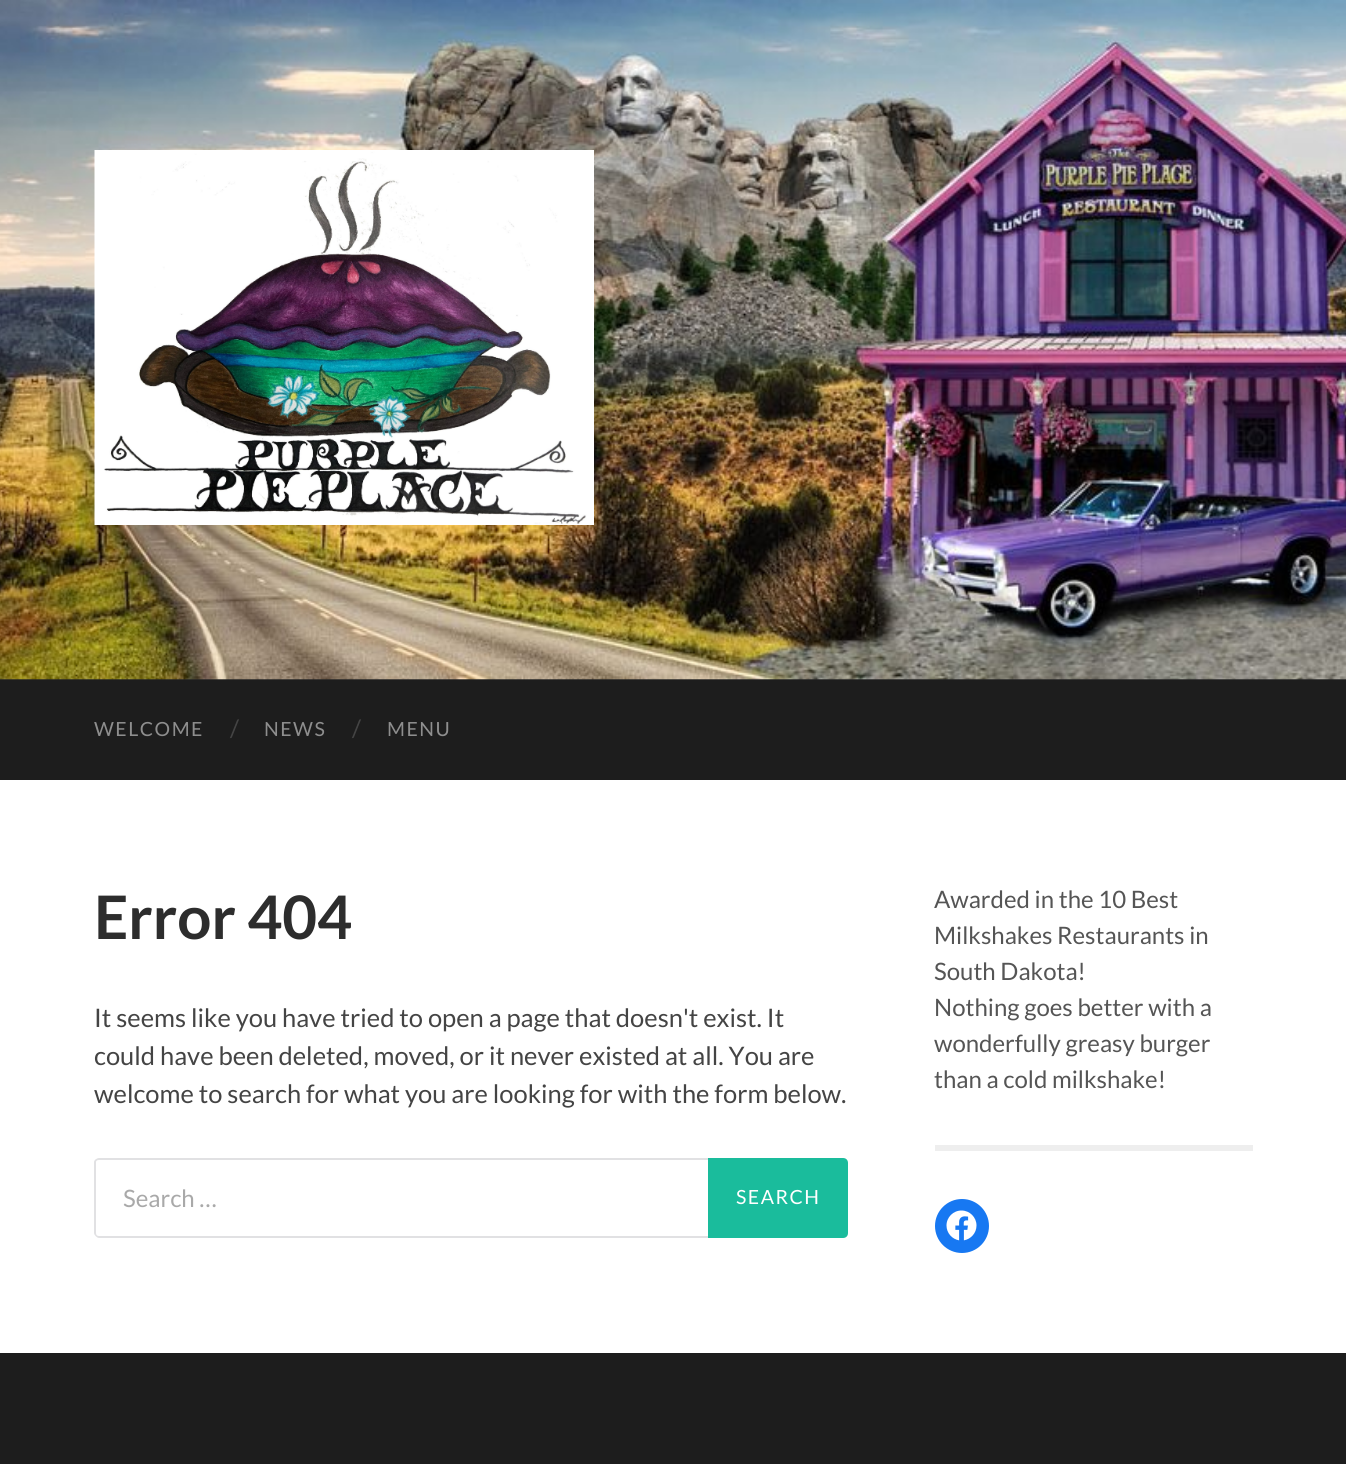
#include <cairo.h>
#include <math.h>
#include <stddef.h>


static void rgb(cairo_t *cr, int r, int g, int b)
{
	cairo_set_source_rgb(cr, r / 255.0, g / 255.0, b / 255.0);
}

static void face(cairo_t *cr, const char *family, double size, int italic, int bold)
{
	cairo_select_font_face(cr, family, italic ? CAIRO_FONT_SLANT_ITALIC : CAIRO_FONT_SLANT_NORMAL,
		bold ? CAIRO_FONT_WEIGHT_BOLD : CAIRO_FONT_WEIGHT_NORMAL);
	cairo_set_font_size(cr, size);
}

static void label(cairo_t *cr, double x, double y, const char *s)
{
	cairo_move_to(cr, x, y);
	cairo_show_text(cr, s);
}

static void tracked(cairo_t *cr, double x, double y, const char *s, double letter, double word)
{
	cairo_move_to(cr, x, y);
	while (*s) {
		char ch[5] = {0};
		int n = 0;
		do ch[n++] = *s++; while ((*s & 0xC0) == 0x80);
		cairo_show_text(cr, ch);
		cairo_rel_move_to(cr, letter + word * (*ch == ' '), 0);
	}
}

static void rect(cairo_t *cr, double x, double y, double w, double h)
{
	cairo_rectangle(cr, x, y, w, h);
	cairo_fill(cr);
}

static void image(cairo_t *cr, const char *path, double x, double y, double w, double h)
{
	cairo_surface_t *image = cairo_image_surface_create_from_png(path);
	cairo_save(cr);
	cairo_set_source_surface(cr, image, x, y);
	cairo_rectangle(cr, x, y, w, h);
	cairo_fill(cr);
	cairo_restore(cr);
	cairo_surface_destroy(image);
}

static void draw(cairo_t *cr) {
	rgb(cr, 255, 255, 255);
	cairo_paint(cr);
	rgb(cr, 38, 38, 38);
	rect(cr, 0, 679, 1346, 1);
	image(cr, "image0.png", 0, 0, 1346, 680);
	image(cr, "image1.png", 94, 150, 500, 375);
	rgb(cr, 29, 29, 29);
	rect(cr, 0, 680, 1346, 100);
	face(cr, "Lato", 19.5, 0, 0);
	rgb(cr, 142, 142, 142);
	tracked(cr, 94, 736, "WELCOME", 1.5, 0);
	face(cr, "Lato", 24, 0, 0);
	rgb(cr, 68, 68, 68);
	label(cr, 230, 737, "/");
	face(cr, "Lato", 19.5, 0, 0);
	rgb(cr, 142, 142, 142);
	tracked(cr, 264, 736, "NEWS", 1.5, 0);
	face(cr, "Lato", 24, 0, 0);
	rgb(cr, 68, 68, 68);
	label(cr, 352, 737, "/");
	face(cr, "Lato", 19.5, 0, 0);
	rgb(cr, 142, 142, 142);
	tracked(cr, 387, 736, "MENU", 1.5, 0);
	face(cr, "Lato", 60, 0, 1);
	rgb(cr, 45, 45, 45);
	label(cr, 94, 939, "Error 404");
	face(cr, "Lato", 25.5, 0, 0);
	rgb(cr, 68, 68, 68);
	label(cr, 94, 1027, "It seems like you have tried to open a page that doesn't exist. It");
	label(cr, 94, 1065, "could have been deleted, moved, or it never existed at all. You are");
	label(cr, 94, 1103, "welcome to search for what you are looking for with the form below.");
	rgb(cr, 225, 225, 227);
	cairo_set_fill_rule(cr, CAIRO_FILL_RULE_EVEN_ODD);
	cairo_new_path(cr);
	cairo_move_to(cr, 99, 1158);
	cairo_line_to(cr, 708, 1158);
	cairo_line_to(cr, 708, 1238);
	cairo_line_to(cr, 99, 1238);
	cairo_curve_to(cr, 97, 1238, 94, 1235, 94, 1233);
	cairo_line_to(cr, 94, 1162);
	cairo_curve_to(cr, 94, 1160, 97, 1158, 99, 1158);
	cairo_close_path(cr);
	cairo_move_to(cr, 99, 1160);
	cairo_line_to(cr, 708, 1160);
	cairo_line_to(cr, 708, 1236);
	cairo_line_to(cr, 99, 1236);
	cairo_curve_to(cr, 97, 1236, 96, 1235, 96, 1233);
	cairo_line_to(cr, 96, 1162);
	cairo_curve_to(cr, 96, 1161, 97, 1160, 99, 1160);
	cairo_close_path(cr);
	cairo_fill(cr);
	face(cr, "Lato", 24, 0, 0);
	rgb(cr, 169, 169, 169);
	label(cr, 123, 1207, "Search …");
	rgb(cr, 26, 188, 156);
	cairo_new_path(cr);
	cairo_move_to(cr, 708, 1158);
	cairo_line_to(cr, 843, 1158);
	cairo_curve_to(cr, 846, 1158, 848, 1160, 848, 1163);
	cairo_line_to(cr, 848, 1233);
	cairo_curve_to(cr, 848, 1236, 846, 1238, 843, 1238);
	cairo_line_to(cr, 708, 1238);
	cairo_close_path(cr);
	cairo_fill(cr);
	face(cr, "Lato", 19.5, 0, 0);
	rgb(cr, 255, 255, 255);
	tracked(cr, 736, 1204, "SEARCH", 1.5, 0);
	rgb(cr, 238, 238, 238);
	rect(cr, 935, 1145, 318, 6);
	face(cr, "Lato", 24, 0, 0);
	rgb(cr, 85, 85, 85);
	label(cr, 934, 908, "Awarded in the 10 Best");
	label(cr, 934, 944, "Milkshakes Restaurants in");
	label(cr, 934, 980, "South Dakota!");
	label(cr, 934, 1016, "Nothing goes better with a");
	label(cr, 934, 1052, "wonderfully greasy burger");
	label(cr, 934, 1088, "than a cold milkshake!");
	rgb(cr, 23, 120, 242);
	cairo_new_path(cr);
	cairo_arc(cr, 962, 1226, 27, 0, 2 * M_PI);
	cairo_fill(cr);
	image(cr, "image2.png", 946, 1210, 31, 31);
	rgb(cr, 29, 29, 29);
	rect(cr, 0, 1353, 1346, 111);
}

int main(void) {
	cairo_surface_t *surface = cairo_image_surface_create(CAIRO_FORMAT_RGB24, 1346, 1464);
	cairo_t *cr = cairo_create(surface);
	cairo_font_options_t *options = cairo_font_options_create();
	cairo_font_options_set_hint_metrics(options, CAIRO_HINT_METRICS_OFF);
	cairo_font_options_set_hint_style(options, CAIRO_HINT_STYLE_NONE);
	cairo_set_font_options(cr, options);
	cairo_set_miter_limit(cr, 4);
	draw(cr);
	cairo_surface_write_to_png(surface, "render.png");
	cairo_font_options_destroy(options);
	cairo_destroy(cr);
	cairo_surface_destroy(surface);
	return 0;
}
